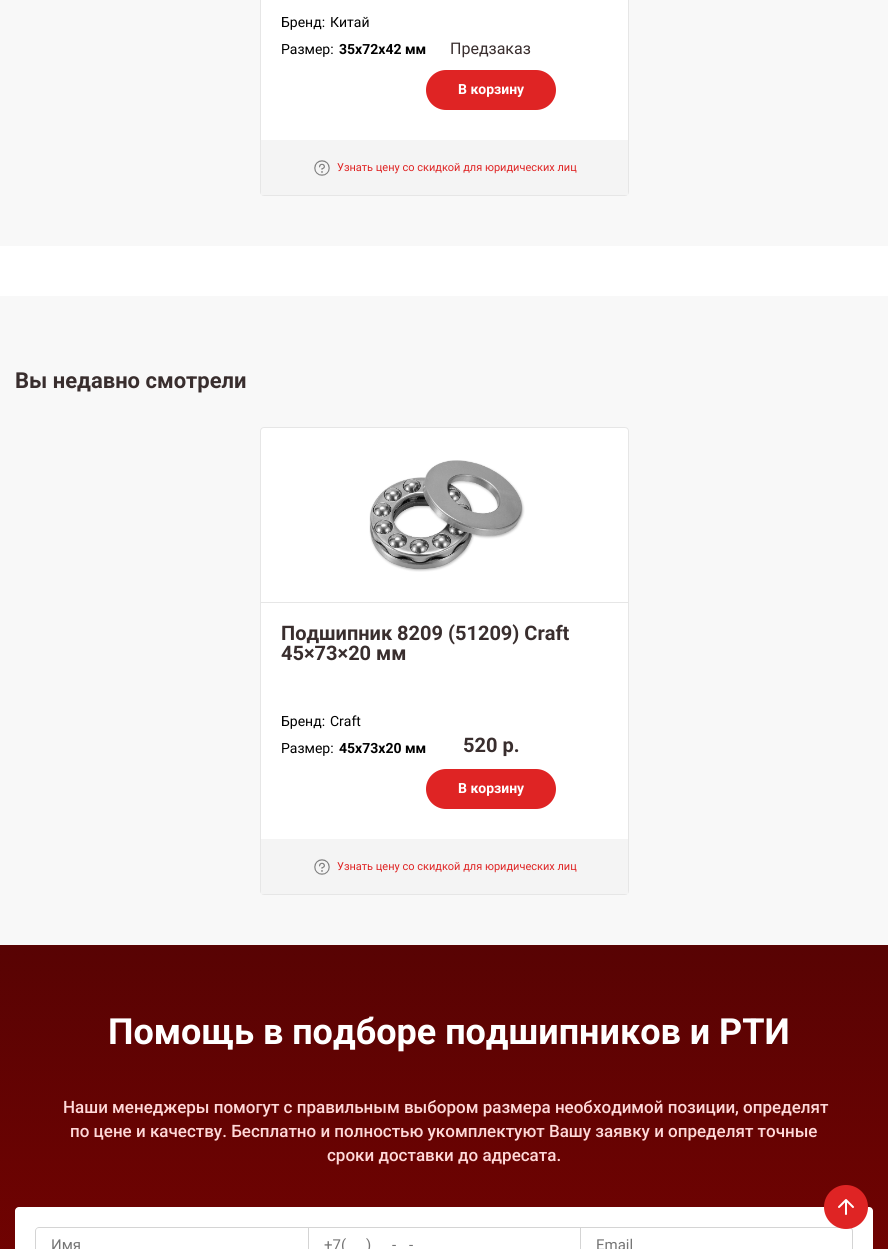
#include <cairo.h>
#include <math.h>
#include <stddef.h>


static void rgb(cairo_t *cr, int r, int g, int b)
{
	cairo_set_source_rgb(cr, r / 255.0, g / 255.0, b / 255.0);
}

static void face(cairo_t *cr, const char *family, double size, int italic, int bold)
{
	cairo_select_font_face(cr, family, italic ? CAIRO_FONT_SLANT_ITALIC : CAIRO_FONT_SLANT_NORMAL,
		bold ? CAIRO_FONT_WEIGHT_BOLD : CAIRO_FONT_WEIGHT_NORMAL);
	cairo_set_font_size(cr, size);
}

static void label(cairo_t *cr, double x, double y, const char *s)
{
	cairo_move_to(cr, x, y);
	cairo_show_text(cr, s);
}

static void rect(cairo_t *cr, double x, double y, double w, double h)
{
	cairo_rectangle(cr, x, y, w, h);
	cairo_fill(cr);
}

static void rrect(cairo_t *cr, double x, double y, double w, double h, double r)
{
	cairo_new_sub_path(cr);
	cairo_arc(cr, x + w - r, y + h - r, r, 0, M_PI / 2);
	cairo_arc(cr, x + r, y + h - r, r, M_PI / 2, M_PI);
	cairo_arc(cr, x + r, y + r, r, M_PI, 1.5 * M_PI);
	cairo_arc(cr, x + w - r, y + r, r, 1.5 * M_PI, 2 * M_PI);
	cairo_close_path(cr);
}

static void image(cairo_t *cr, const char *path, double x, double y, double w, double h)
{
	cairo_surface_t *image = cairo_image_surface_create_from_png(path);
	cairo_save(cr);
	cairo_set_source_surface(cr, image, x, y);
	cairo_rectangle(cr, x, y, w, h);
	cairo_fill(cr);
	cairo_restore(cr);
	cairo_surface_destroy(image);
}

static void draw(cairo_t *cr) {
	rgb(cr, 255, 255, 255);
	cairo_paint(cr);
	rgb(cr, 248, 248, 248);
	rect(cr, 0, 0, 888, 246);
	rgb(cr, 255, 255, 255);
	rrect(cr, 260.5, -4.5, 368, 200, 3.5);
	cairo_fill_preserve(cr);
	rgb(cr, 230, 230, 230);
	cairo_set_line_width(cr, 1);
	cairo_stroke(cr);
	face(cr, "Roboto", 14, 0, 0);
	rgb(cr, 0, 0, 0);
	label(cr, 281, 27, "Бренд:");
	label(cr, 330, 27, "Китай");
	label(cr, 281, 54, "Размер:");
	face(cr, "Roboto", 14, 0, 1);
	label(cr, 339, 54, "35x72x42 мм");
	face(cr, "Roboto", 16, 0, 0);
	rgb(cr, 57, 46, 46);
	label(cr, 450, 54, "Предзаказ");
	rgb(cr, 223, 36, 36);
	rrect(cr, 427, 71, 128, 38, 19);
	cairo_fill_preserve(cr);
	cairo_set_line_width(cr, 2);
	cairo_stroke(cr);
	face(cr, "Roboto", 14, 0, 1);
	rgb(cr, 255, 255, 255);
	label(cr, 458, 94, "В корзину");
	rgb(cr, 244, 244, 244);
	rect(cr, 261, 140, 367, 55);
	image(cr, "image0.png", 314, 160, 16, 16);
	face(cr, "Roboto", 11, 0, 0);
	rgb(cr, 223, 36, 36);
	label(cr, 337, 171, "Узнать цену со скидкой для юридических лиц");
	rgb(cr, 248, 248, 248);
	rect(cr, 0, 296, 888, 649);
	face(cr, "Roboto", 22, 0, 1);
	rgb(cr, 57, 46, 46);
	label(cr, 15, 388, "Вы недавно смотрели");
	rgb(cr, 255, 255, 255);
	rrect(cr, 260.5, 427.5, 368, 467, 3.5);
	cairo_fill_preserve(cr);
	rgb(cr, 230, 230, 230);
	cairo_set_line_width(cr, 1);
	cairo_stroke(cr);
	rect(cr, 261, 602, 367, 1);
	image(cr, "image1.png", 369, 460, 156, 112);
	face(cr, "Roboto", 20, 0, 1);
	rgb(cr, 57, 46, 46);
	label(cr, 281, 640, "Подшипник 8209 (51209) Craft");
	label(cr, 281, 660, "45×73×20 мм");
	face(cr, "Roboto", 14, 0, 0);
	rgb(cr, 0, 0, 0);
	label(cr, 281, 726, "Бренд:");
	label(cr, 330, 726, "Craft");
	label(cr, 281, 753, "Размер:");
	face(cr, "Roboto", 14, 0, 1);
	label(cr, 339, 753, "45x73x20 мм");
	face(cr, "Roboto", 20, 0, 1);
	rgb(cr, 57, 46, 46);
	label(cr, 463, 752, "520 p.");
	rgb(cr, 223, 36, 36);
	rrect(cr, 427, 770, 128, 38, 19);
	cairo_fill_preserve(cr);
	cairo_set_line_width(cr, 2);
	cairo_stroke(cr);
	face(cr, "Roboto", 14, 0, 1);
	rgb(cr, 255, 255, 255);
	label(cr, 458, 793, "В корзину");
	rgb(cr, 244, 244, 244);
	rect(cr, 261, 839, 367, 55);
	image(cr, "image0.png", 314, 859, 16, 16);
	face(cr, "Roboto", 11, 0, 0);
	rgb(cr, 223, 36, 36);
	label(cr, 337, 870, "Узнать цену со скидкой для юридических лиц");
	image(cr, "image2.png", 0, 945, 888, 304);
	face(cr, "Roboto", 36, 0, 1);
	rgb(cr, 255, 255, 255);
	label(cr, 108, 1044, "Помощь в подборе подшипников и РТИ");
	face(cr, "Roboto Medium", 17, 0, 0);
	rgb(cr, 255, 217, 217);
	label(cr, 63, 1113, "Наши менеджеры помогут с правильным выбором размера необходимой позиции, определят");
	label(cr, 70, 1137, "по цене и качеству. Бесплатно и полностью укомплектуют Вашу заявку и определят точные");
	label(cr, 327, 1161, "сроки доставки до адресата.");
	rgb(cr, 255, 255, 255);
	rrect(cr, 15, 1207, 858, 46, 4);
	cairo_fill(cr);
	rgb(cr, 212, 212, 212);
	cairo_set_fill_rule(cr, CAIRO_FILL_RULE_EVEN_ODD);
	cairo_new_path(cr);
	cairo_move_to(cr, 39, 1227);
	cairo_line_to(cr, 308, 1227);
	cairo_line_to(cr, 308, 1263);
	cairo_line_to(cr, 39, 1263);
	cairo_curve_to(cr, 37, 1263, 35, 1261, 35, 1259);
	cairo_line_to(cr, 35, 1231);
	cairo_curve_to(cr, 35, 1229, 37, 1227, 39, 1227);
	cairo_close_path(cr);
	cairo_move_to(cr, 39, 1228);
	cairo_line_to(cr, 308, 1228);
	cairo_line_to(cr, 308, 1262);
	cairo_line_to(cr, 39, 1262);
	cairo_curve_to(cr, 37, 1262, 36, 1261, 36, 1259);
	cairo_line_to(cr, 36, 1231);
	cairo_curve_to(cr, 36, 1229, 37, 1228, 39, 1228);
	cairo_close_path(cr);
	cairo_fill(cr);
	face(cr, "Roboto", 15, 0, 0);
	rgb(cr, 117, 117, 117);
	label(cr, 51, 1250, "Имя");
	rgb(cr, 212, 212, 212);
	rect(cr, 308, 1227, 272, 1);
	rect(cr, 308, 1227, 1, 22);
	rgb(cr, 117, 117, 117);
	label(cr, 324, 1250, "+7(");
	label(cr, 366, 1250, ")");
	label(cr, 392, 1250, "-");
	label(cr, 409, 1250, "-");
	cairo_new_path(cr);
	cairo_move_to(cr, 580.5, 1227.5);
	cairo_line_to(cr, 849, 1227.5);
	cairo_curve_to(cr, 851, 1227.5, 852.5, 1229, 852.5, 1231);
	cairo_line_to(cr, 852.5, 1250);
	cairo_curve_to(cr, 852.5, 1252, 851, 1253.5, 849, 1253.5);
	cairo_line_to(cr, 580.5, 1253.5);
	cairo_close_path(cr);
	rgb(cr, 212, 212, 212);
	cairo_set_line_width(cr, 1);
	cairo_stroke(cr);
	rgb(cr, 117, 117, 117);
	label(cr, 596, 1250, "Email");
	rgb(cr, 223, 36, 36);
	cairo_new_path(cr);
	cairo_arc(cr, 846, 1207, 22, 0, 2 * M_PI);
	cairo_fill(cr);
	cairo_new_path(cr);
	cairo_move_to(cr, 846, 1214);
	cairo_line_to(cr, 846, 1201);
	cairo_move_to(cr, 839, 1207);
	cairo_line_to(cr, 846, 1200);
	cairo_line_to(cr, 853, 1207);
	rgb(cr, 255, 255, 255);
	cairo_set_line_width(cr, 2);
	cairo_set_line_cap(cr, CAIRO_LINE_CAP_ROUND);
	cairo_set_line_join(cr, CAIRO_LINE_JOIN_ROUND);
	cairo_stroke(cr);
}

int main(void) {
	cairo_surface_t *surface = cairo_image_surface_create(CAIRO_FORMAT_RGB24, 888, 1249);
	cairo_t *cr = cairo_create(surface);
	cairo_font_options_t *options = cairo_font_options_create();
	cairo_font_options_set_hint_metrics(options, CAIRO_HINT_METRICS_OFF);
	cairo_font_options_set_hint_style(options, CAIRO_HINT_STYLE_NONE);
	cairo_set_font_options(cr, options);
	cairo_set_miter_limit(cr, 4);
	draw(cr);
	cairo_surface_write_to_png(surface, "render.png");
	cairo_font_options_destroy(options);
	cairo_destroy(cr);
	cairo_surface_destroy(surface);
	return 0;
}
